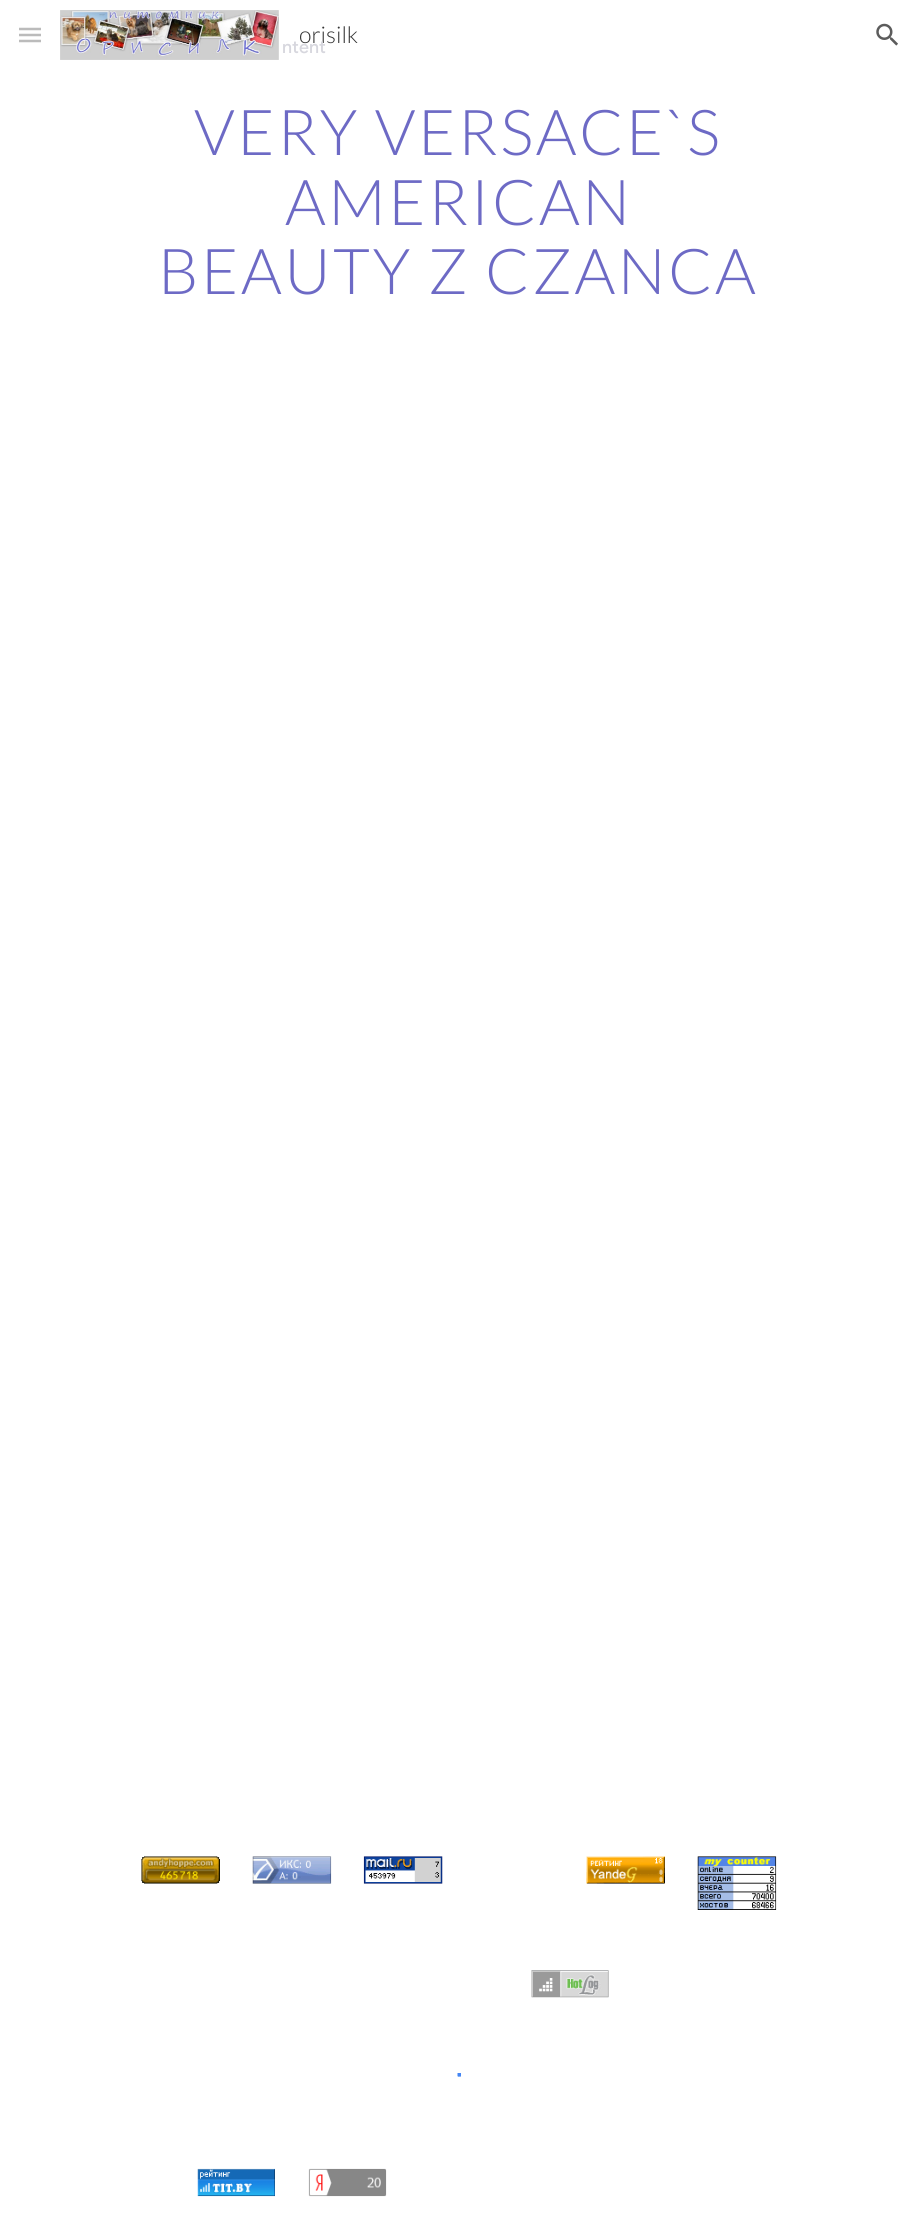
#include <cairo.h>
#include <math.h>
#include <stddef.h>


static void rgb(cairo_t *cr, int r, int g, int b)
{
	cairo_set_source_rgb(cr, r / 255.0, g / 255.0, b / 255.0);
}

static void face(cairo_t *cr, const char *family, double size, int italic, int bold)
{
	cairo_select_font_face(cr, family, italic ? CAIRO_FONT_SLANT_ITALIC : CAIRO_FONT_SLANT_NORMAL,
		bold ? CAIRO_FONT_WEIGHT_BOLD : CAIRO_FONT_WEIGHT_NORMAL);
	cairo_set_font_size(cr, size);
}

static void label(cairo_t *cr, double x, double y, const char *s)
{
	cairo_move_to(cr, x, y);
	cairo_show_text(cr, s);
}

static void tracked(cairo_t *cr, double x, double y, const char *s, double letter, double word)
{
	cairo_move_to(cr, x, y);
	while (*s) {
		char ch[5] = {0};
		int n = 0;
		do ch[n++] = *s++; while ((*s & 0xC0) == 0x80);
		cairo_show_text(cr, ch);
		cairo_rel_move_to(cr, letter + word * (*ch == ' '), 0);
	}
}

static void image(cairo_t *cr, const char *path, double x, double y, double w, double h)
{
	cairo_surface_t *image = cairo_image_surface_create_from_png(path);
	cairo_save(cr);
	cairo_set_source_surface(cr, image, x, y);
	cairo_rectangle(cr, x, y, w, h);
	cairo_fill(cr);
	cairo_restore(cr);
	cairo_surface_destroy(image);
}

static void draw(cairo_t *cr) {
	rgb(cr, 255, 255, 255);
	cairo_paint(cr);
	cairo_new_path(cr);
	cairo_move_to(cr, 19, 29);
	cairo_line_to(cr, 41, 29);
	cairo_move_to(cr, 19, 35);
	cairo_line_to(cr, 41, 35);
	cairo_move_to(cr, 19, 41);
	cairo_line_to(cr, 41, 41);
	rgb(cr, 187, 187, 187);
	cairo_set_line_width(cr, 2.5);
	cairo_stroke(cr);
	image(cr, "image0.png", 60, 10, 219, 50);
	face(cr, "Lato Light", 23, 0, 0);
	rgb(cr, 51, 51, 51);
	label(cr, 299, 43, "orisilk");
	image(cr, "image1.png", 876, 23, 22, 23);
	face(cr, "Lato Light", 63.25, 0, 0);
	rgb(cr, 109, 106, 197);
	tracked(cr, 194, 155, "VERY VERSACE`S", 2.5, 0);
	tracked(cr, 285, 225, "AMERICAN", 2.5, 0);
	tracked(cr, 158, 294, "BEAUTY Z CZANCA", 2.5, 0);
	image(cr, "image2.png", 141, 1856, 79, 28);
	image(cr, "image3.png", 252, 1856, 80, 28);
	image(cr, "image4.png", 363, 1856, 80, 28);
	image(cr, "image5.png", 586, 1856, 79, 28);
	image(cr, "image6.png", 697, 1856, 80, 54);
	image(cr, "image7.png", 531, 1970, 78, 28);
	cairo_save(cr);
	cairo_rectangle(cr, 441, 2073, 18, 35);
	cairo_clip(cr);
	cairo_new_path(cr);
	cairo_move_to(cr, 457.5, 2074.5);
	cairo_curve_to(cr, 460.5, 2074.5, 463.5, 2075, 466.5, 2076.5);
	cairo_curve_to(cr, 479.5, 2084, 475.5, 2104.5, 460, 2105.5);
	rgb(cr, 68, 134, 244);
	cairo_set_line_width(cr, 3.7);
	cairo_stroke(cr);
	cairo_restore(cr);
	cairo_save(cr);
	cairo_rectangle(cr, 458, 2073, 3, 35);
	cairo_clip(cr);
	cairo_new_path(cr);
	cairo_move_to(cr, 447.5, 2101);
	cairo_curve_to(cr, 444, 2097.5, 442.5, 2092, 443.5, 2087);
	cairo_curve_to(cr, 447, 2068.5, 474.5, 2071.5, 474.5, 2090);
	cairo_curve_to(cr, 474.5, 2094, 472.5, 2098, 470, 2101);
	rgb(cr, 68, 134, 244);
	cairo_set_line_width(cr, 3.8);
	cairo_stroke(cr);
	cairo_restore(cr);
	cairo_save(cr);
	cairo_rectangle(cr, 459, 2073, 17, 35);
	cairo_clip(cr);
	cairo_new_path(cr);
	cairo_move_to(cr, 457.5, 2105.5);
	cairo_curve_to(cr, 454.5, 2105.5, 451.5, 2104.5, 449, 2102.5);
	cairo_curve_to(cr, 437, 2093, 445, 2073.5, 460, 2074.5);
	cairo_move_to(cr, 457.5, 2105.5);
	cairo_curve_to(cr, 454.5, 2105.5, 451.5, 2104.5, 449, 2102.5);
	cairo_curve_to(cr, 437, 2093, 445, 2073.5, 460, 2074.5);
	cairo_move_to(cr, 457.5, 2105.5);
	cairo_curve_to(cr, 454.5, 2105.5, 451.5, 2104.5, 449, 2102.5);
	cairo_curve_to(cr, 437, 2093, 445, 2073.5, 460, 2074.5);
	cairo_move_to(cr, 457.5, 2105.5);
	cairo_curve_to(cr, 454.5, 2105.5, 451.5, 2104.5, 449, 2102.5);
	cairo_curve_to(cr, 437, 2093, 445, 2073.5, 460, 2074.5);
	rgb(cr, 68, 134, 244);
	cairo_set_line_width(cr, 3.7);
	cairo_stroke(cr);
	cairo_restore(cr);
	image(cr, "image8.png", 197, 2168, 78, 29);
	image(cr, "image9.png", 308, 2168, 79, 29);
	face(cr, "Google Sans Medium", 17.5, 0, 0);
	rgb(cr, 215, 215, 222);
	label(cr, 282, 53, "ntent");
}

int main(void) {
	cairo_surface_t *surface = cairo_image_surface_create(CAIRO_FORMAT_RGB24, 917, 2239);
	cairo_t *cr = cairo_create(surface);
	cairo_font_options_t *options = cairo_font_options_create();
	cairo_font_options_set_hint_metrics(options, CAIRO_HINT_METRICS_OFF);
	cairo_font_options_set_hint_style(options, CAIRO_HINT_STYLE_NONE);
	cairo_set_font_options(cr, options);
	cairo_set_miter_limit(cr, 4);
	draw(cr);
	cairo_surface_write_to_png(surface, "render.png");
	cairo_font_options_destroy(options);
	cairo_destroy(cr);
	cairo_surface_destroy(surface);
	return 0;
}
